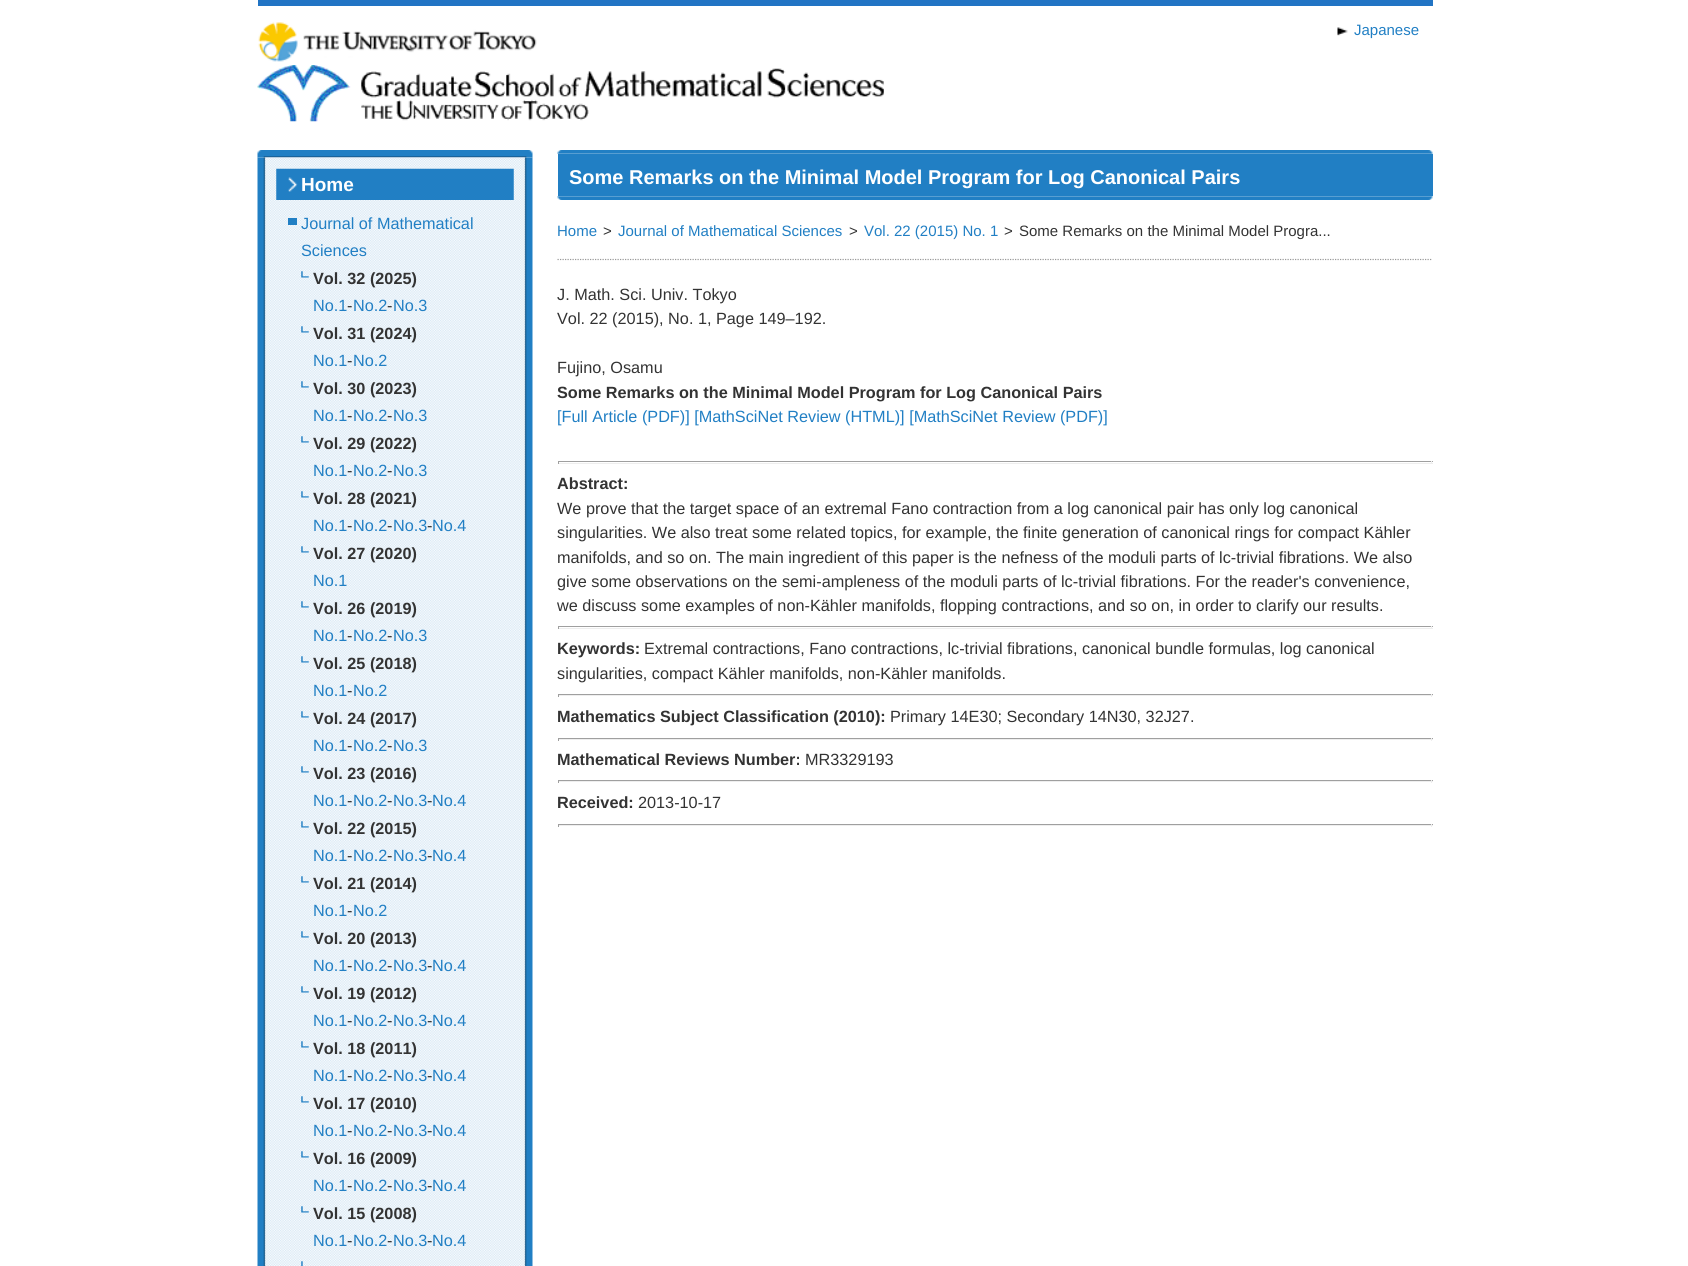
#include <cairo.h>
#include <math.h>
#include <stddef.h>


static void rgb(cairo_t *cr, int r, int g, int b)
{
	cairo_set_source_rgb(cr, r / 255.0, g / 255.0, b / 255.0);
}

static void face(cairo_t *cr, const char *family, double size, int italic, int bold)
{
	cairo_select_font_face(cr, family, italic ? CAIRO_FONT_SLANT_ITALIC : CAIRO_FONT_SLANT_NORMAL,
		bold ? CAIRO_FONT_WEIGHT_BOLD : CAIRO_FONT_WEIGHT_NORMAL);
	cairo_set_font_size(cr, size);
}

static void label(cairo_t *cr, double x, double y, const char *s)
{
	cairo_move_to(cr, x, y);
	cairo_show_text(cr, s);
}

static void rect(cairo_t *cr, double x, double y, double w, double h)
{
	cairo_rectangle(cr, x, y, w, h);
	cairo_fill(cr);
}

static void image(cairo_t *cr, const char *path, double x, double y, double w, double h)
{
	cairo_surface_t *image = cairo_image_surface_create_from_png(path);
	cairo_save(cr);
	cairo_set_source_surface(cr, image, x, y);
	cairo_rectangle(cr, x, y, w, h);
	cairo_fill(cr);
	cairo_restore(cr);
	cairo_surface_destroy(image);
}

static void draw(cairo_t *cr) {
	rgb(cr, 255, 255, 255);
	cairo_paint(cr);
	rgb(cr, 33, 116, 196);
	rect(cr, 258, 0, 1175, 6);
	image(cr, "image0.png", 258, 22, 279, 40);
	image(cr, "image1.png", 257, 65, 627, 57);
	image(cr, "image2.png", 1337, 27, 11, 9);
	face(cr, "Liberation Sans", 15, 0, 0);
	rgb(cr, 33, 127, 196);
	label(cr, 1354, 35, "Japanese");
	image(cr, "image3.png", 257, 150, 276, 8);
	image(cr, "image4.png", 257, 157, 276, 1109);
	image(cr, "image5.png", 276, 168, 238, 32);
	face(cr, "Liberation Sans", 19, 0, 1);
	rgb(cr, 255, 255, 255);
	label(cr, 301, 191, "Home");
	rgb(cr, 33, 127, 196);
	rect(cr, 288, 218, 9, 7);
	face(cr, "Liberation Sans", 16.25, 0, 0);
	label(cr, 301, 229, "Journal of Mathematical");
	label(cr, 301, 256, "Sciences");
	image(cr, "image6.png", 301, 271, 8, 7);
	face(cr, "Liberation Sans", 16.25, 0, 1);
	rgb(cr, 51, 51, 51);
	label(cr, 313, 284, "Vol. 32 (2025)");
	face(cr, "Liberation Sans", 16.25, 0, 0);
	rgb(cr, 33, 127, 196);
	label(cr, 313, 311, "No.1");
	rgb(cr, 51, 51, 51);
	label(cr, 347, 311, "-");
	rgb(cr, 33, 127, 196);
	label(cr, 353, 311, "No.2");
	rgb(cr, 51, 51, 51);
	label(cr, 387, 311, "-");
	rgb(cr, 33, 127, 196);
	label(cr, 393, 311, "No.3");
	image(cr, "image6.png", 301, 326, 8, 7);
	face(cr, "Liberation Sans", 16.25, 0, 1);
	rgb(cr, 51, 51, 51);
	label(cr, 313, 339, "Vol. 31 (2024)");
	face(cr, "Liberation Sans", 16.25, 0, 0);
	rgb(cr, 33, 127, 196);
	label(cr, 313, 366, "No.1");
	rgb(cr, 51, 51, 51);
	label(cr, 347, 366, "-");
	rgb(cr, 33, 127, 196);
	label(cr, 353, 366, "No.2");
	image(cr, "image6.png", 301, 381, 8, 7);
	face(cr, "Liberation Sans", 16.25, 0, 1);
	rgb(cr, 51, 51, 51);
	label(cr, 313, 394, "Vol. 30 (2023)");
	face(cr, "Liberation Sans", 16.25, 0, 0);
	rgb(cr, 33, 127, 196);
	label(cr, 313, 421, "No.1");
	rgb(cr, 51, 51, 51);
	label(cr, 347, 421, "-");
	rgb(cr, 33, 127, 196);
	label(cr, 353, 421, "No.2");
	rgb(cr, 51, 51, 51);
	label(cr, 387, 421, "-");
	rgb(cr, 33, 127, 196);
	label(cr, 393, 421, "No.3");
	image(cr, "image6.png", 301, 436, 8, 7);
	face(cr, "Liberation Sans", 16.25, 0, 1);
	rgb(cr, 51, 51, 51);
	label(cr, 313, 449, "Vol. 29 (2022)");
	face(cr, "Liberation Sans", 16.25, 0, 0);
	rgb(cr, 33, 127, 196);
	label(cr, 313, 476, "No.1");
	rgb(cr, 51, 51, 51);
	label(cr, 347, 476, "-");
	rgb(cr, 33, 127, 196);
	label(cr, 353, 476, "No.2");
	rgb(cr, 51, 51, 51);
	label(cr, 387, 476, "-");
	rgb(cr, 33, 127, 196);
	label(cr, 393, 476, "No.3");
	image(cr, "image6.png", 301, 491, 8, 7);
	face(cr, "Liberation Sans", 16.25, 0, 1);
	rgb(cr, 51, 51, 51);
	label(cr, 313, 504, "Vol. 28 (2021)");
	face(cr, "Liberation Sans", 16.25, 0, 0);
	rgb(cr, 33, 127, 196);
	label(cr, 313, 531, "No.1");
	rgb(cr, 51, 51, 51);
	label(cr, 347, 531, "-");
	rgb(cr, 33, 127, 196);
	label(cr, 353, 531, "No.2");
	rgb(cr, 51, 51, 51);
	label(cr, 387, 531, "-");
	rgb(cr, 33, 127, 196);
	label(cr, 393, 531, "No.3");
	rgb(cr, 51, 51, 51);
	label(cr, 427, 531, "-");
	rgb(cr, 33, 127, 196);
	label(cr, 432, 531, "No.4");
	image(cr, "image6.png", 301, 546, 8, 7);
	face(cr, "Liberation Sans", 16.25, 0, 1);
	rgb(cr, 51, 51, 51);
	label(cr, 313, 559, "Vol. 27 (2020)");
	face(cr, "Liberation Sans", 16.25, 0, 0);
	rgb(cr, 33, 127, 196);
	label(cr, 313, 586, "No.1");
	image(cr, "image6.png", 301, 601, 8, 7);
	face(cr, "Liberation Sans", 16.25, 0, 1);
	rgb(cr, 51, 51, 51);
	label(cr, 313, 614, "Vol. 26 (2019)");
	face(cr, "Liberation Sans", 16.25, 0, 0);
	rgb(cr, 33, 127, 196);
	label(cr, 313, 641, "No.1");
	rgb(cr, 51, 51, 51);
	label(cr, 347, 641, "-");
	rgb(cr, 33, 127, 196);
	label(cr, 353, 641, "No.2");
	rgb(cr, 51, 51, 51);
	label(cr, 387, 641, "-");
	rgb(cr, 33, 127, 196);
	label(cr, 393, 641, "No.3");
	image(cr, "image6.png", 301, 656, 8, 7);
	face(cr, "Liberation Sans", 16.25, 0, 1);
	rgb(cr, 51, 51, 51);
	label(cr, 313, 669, "Vol. 25 (2018)");
	face(cr, "Liberation Sans", 16.25, 0, 0);
	rgb(cr, 33, 127, 196);
	label(cr, 313, 696, "No.1");
	rgb(cr, 51, 51, 51);
	label(cr, 347, 696, "-");
	rgb(cr, 33, 127, 196);
	label(cr, 353, 696, "No.2");
	image(cr, "image6.png", 301, 711, 8, 7);
	face(cr, "Liberation Sans", 16.25, 0, 1);
	rgb(cr, 51, 51, 51);
	label(cr, 313, 724, "Vol. 24 (2017)");
	face(cr, "Liberation Sans", 16.25, 0, 0);
	rgb(cr, 33, 127, 196);
	label(cr, 313, 751, "No.1");
	rgb(cr, 51, 51, 51);
	label(cr, 347, 751, "-");
	rgb(cr, 33, 127, 196);
	label(cr, 353, 751, "No.2");
	rgb(cr, 51, 51, 51);
	label(cr, 387, 751, "-");
	rgb(cr, 33, 127, 196);
	label(cr, 393, 751, "No.3");
	image(cr, "image6.png", 301, 766, 8, 7);
	face(cr, "Liberation Sans", 16.25, 0, 1);
	rgb(cr, 51, 51, 51);
	label(cr, 313, 779, "Vol. 23 (2016)");
	face(cr, "Liberation Sans", 16.25, 0, 0);
	rgb(cr, 33, 127, 196);
	label(cr, 313, 806, "No.1");
	rgb(cr, 51, 51, 51);
	label(cr, 347, 806, "-");
	rgb(cr, 33, 127, 196);
	label(cr, 353, 806, "No.2");
	rgb(cr, 51, 51, 51);
	label(cr, 387, 806, "-");
	rgb(cr, 33, 127, 196);
	label(cr, 393, 806, "No.3");
	rgb(cr, 51, 51, 51);
	label(cr, 427, 806, "-");
	rgb(cr, 33, 127, 196);
	label(cr, 432, 806, "No.4");
	image(cr, "image6.png", 301, 821, 8, 7);
	face(cr, "Liberation Sans", 16.25, 0, 1);
	rgb(cr, 51, 51, 51);
	label(cr, 313, 834, "Vol. 22 (2015)");
	face(cr, "Liberation Sans", 16.25, 0, 0);
	rgb(cr, 33, 127, 196);
	label(cr, 313, 861, "No.1");
	rgb(cr, 51, 51, 51);
	label(cr, 347, 861, "-");
	rgb(cr, 33, 127, 196);
	label(cr, 353, 861, "No.2");
	rgb(cr, 51, 51, 51);
	label(cr, 387, 861, "-");
	rgb(cr, 33, 127, 196);
	label(cr, 393, 861, "No.3");
	rgb(cr, 51, 51, 51);
	label(cr, 427, 861, "-");
	rgb(cr, 33, 127, 196);
	label(cr, 432, 861, "No.4");
	image(cr, "image6.png", 301, 876, 8, 7);
	face(cr, "Liberation Sans", 16.25, 0, 1);
	rgb(cr, 51, 51, 51);
	label(cr, 313, 889, "Vol. 21 (2014)");
	face(cr, "Liberation Sans", 16.25, 0, 0);
	rgb(cr, 33, 127, 196);
	label(cr, 313, 916, "No.1");
	rgb(cr, 51, 51, 51);
	label(cr, 347, 916, "-");
	rgb(cr, 33, 127, 196);
	label(cr, 353, 916, "No.2");
	image(cr, "image6.png", 301, 931, 8, 7);
	face(cr, "Liberation Sans", 16.25, 0, 1);
	rgb(cr, 51, 51, 51);
	label(cr, 313, 944, "Vol. 20 (2013)");
	face(cr, "Liberation Sans", 16.25, 0, 0);
	rgb(cr, 33, 127, 196);
	label(cr, 313, 971, "No.1");
	rgb(cr, 51, 51, 51);
	label(cr, 347, 971, "-");
	rgb(cr, 33, 127, 196);
	label(cr, 353, 971, "No.2");
	rgb(cr, 51, 51, 51);
	label(cr, 387, 971, "-");
	rgb(cr, 33, 127, 196);
	label(cr, 393, 971, "No.3");
	rgb(cr, 51, 51, 51);
	label(cr, 427, 971, "-");
	rgb(cr, 33, 127, 196);
	label(cr, 432, 971, "No.4");
	image(cr, "image6.png", 301, 986, 8, 7);
	face(cr, "Liberation Sans", 16.25, 0, 1);
	rgb(cr, 51, 51, 51);
	label(cr, 313, 999, "Vol. 19 (2012)");
	face(cr, "Liberation Sans", 16.25, 0, 0);
	rgb(cr, 33, 127, 196);
	label(cr, 313, 1026, "No.1");
	rgb(cr, 51, 51, 51);
	label(cr, 347, 1026, "-");
	rgb(cr, 33, 127, 196);
	label(cr, 353, 1026, "No.2");
	rgb(cr, 51, 51, 51);
	label(cr, 387, 1026, "-");
	rgb(cr, 33, 127, 196);
	label(cr, 393, 1026, "No.3");
	rgb(cr, 51, 51, 51);
	label(cr, 427, 1026, "-");
	rgb(cr, 33, 127, 196);
	label(cr, 432, 1026, "No.4");
	image(cr, "image6.png", 301, 1041, 8, 7);
	face(cr, "Liberation Sans", 16.25, 0, 1);
	rgb(cr, 51, 51, 51);
	label(cr, 313, 1054, "Vol. 18 (2011)");
	face(cr, "Liberation Sans", 16.25, 0, 0);
	rgb(cr, 33, 127, 196);
	label(cr, 313, 1081, "No.1");
	rgb(cr, 51, 51, 51);
	label(cr, 347, 1081, "-");
	rgb(cr, 33, 127, 196);
	label(cr, 353, 1081, "No.2");
	rgb(cr, 51, 51, 51);
	label(cr, 387, 1081, "-");
	rgb(cr, 33, 127, 196);
	label(cr, 393, 1081, "No.3");
	rgb(cr, 51, 51, 51);
	label(cr, 427, 1081, "-");
	rgb(cr, 33, 127, 196);
	label(cr, 432, 1081, "No.4");
	image(cr, "image6.png", 301, 1096, 8, 7);
	face(cr, "Liberation Sans", 16.25, 0, 1);
	rgb(cr, 51, 51, 51);
	label(cr, 313, 1109, "Vol. 17 (2010)");
	face(cr, "Liberation Sans", 16.25, 0, 0);
	rgb(cr, 33, 127, 196);
	label(cr, 313, 1136, "No.1");
	rgb(cr, 51, 51, 51);
	label(cr, 347, 1136, "-");
	rgb(cr, 33, 127, 196);
	label(cr, 353, 1136, "No.2");
	rgb(cr, 51, 51, 51);
	label(cr, 387, 1136, "-");
	rgb(cr, 33, 127, 196);
	label(cr, 393, 1136, "No.3");
	rgb(cr, 51, 51, 51);
	label(cr, 427, 1136, "-");
	rgb(cr, 33, 127, 196);
	label(cr, 432, 1136, "No.4");
	image(cr, "image6.png", 301, 1151, 8, 7);
	face(cr, "Liberation Sans", 16.25, 0, 1);
	rgb(cr, 51, 51, 51);
	label(cr, 313, 1164, "Vol. 16 (2009)");
	face(cr, "Liberation Sans", 16.25, 0, 0);
	rgb(cr, 33, 127, 196);
	label(cr, 313, 1191, "No.1");
	rgb(cr, 51, 51, 51);
	label(cr, 347, 1191, "-");
	rgb(cr, 33, 127, 196);
	label(cr, 353, 1191, "No.2");
	rgb(cr, 51, 51, 51);
	label(cr, 387, 1191, "-");
	rgb(cr, 33, 127, 196);
	label(cr, 393, 1191, "No.3");
	rgb(cr, 51, 51, 51);
	label(cr, 427, 1191, "-");
	rgb(cr, 33, 127, 196);
	label(cr, 432, 1191, "No.4");
	image(cr, "image6.png", 301, 1206, 8, 7);
	face(cr, "Liberation Sans", 16.25, 0, 1);
	rgb(cr, 51, 51, 51);
	label(cr, 313, 1219, "Vol. 15 (2008)");
	face(cr, "Liberation Sans", 16.25, 0, 0);
	rgb(cr, 33, 127, 196);
	label(cr, 313, 1246, "No.1");
	rgb(cr, 51, 51, 51);
	label(cr, 347, 1246, "-");
	rgb(cr, 33, 127, 196);
	label(cr, 353, 1246, "No.2");
	rgb(cr, 51, 51, 51);
	label(cr, 387, 1246, "-");
	rgb(cr, 33, 127, 196);
	label(cr, 393, 1246, "No.3");
	rgb(cr, 51, 51, 51);
	label(cr, 427, 1246, "-");
	rgb(cr, 33, 127, 196);
	label(cr, 432, 1246, "No.4");
	image(cr, "image7.png", 301, 1261, 2, 5);
	image(cr, "image8.png", 557, 150, 876, 4);
	rect(cr, 558, 154, 875, 42);
	face(cr, "Liberation Sans", 20, 0, 1);
	rgb(cr, 255, 255, 255);
	label(cr, 569, 184, "Some Remarks on the Minimal Model Program for Log Canonical Pairs");
	image(cr, "image9.png", 557, 196, 876, 4);
	cairo_new_path(cr);
	cairo_move_to(cr, 557.5, 259.5);
	cairo_line_to(cr, 1432.5, 259.5);
	rgb(cr, 153, 153, 153);
	cairo_set_line_width(cr, 1.2);
	cairo_set_dash(cr, (double[]){1.25, 1.25}, 2, 0);
	cairo_stroke(cr);
	face(cr, "Liberation Sans", 15, 0, 0);
	rgb(cr, 33, 127, 196);
	label(cr, 557, 236, "Home");
	rgb(cr, 51, 51, 51);
	label(cr, 603, 236, ">");
	rgb(cr, 33, 127, 196);
	label(cr, 618, 236, "Journal of Mathematical Sciences");
	rgb(cr, 51, 51, 51);
	label(cr, 849, 236, ">");
	rgb(cr, 33, 127, 196);
	label(cr, 864, 236, "Vol. 22 (2015) No. 1");
	rgb(cr, 51, 51, 51);
	label(cr, 1004, 236, ">");
	label(cr, 1019, 236, "Some Remarks on the Minimal Model Progra...");
	face(cr, "Liberation Sans", 16.25, 0, 0);
	label(cr, 557, 300, "J. Math. Sci. Univ. Tokyo");
	label(cr, 557, 324, "Vol. 22 (2015), No. 1, Page 149–192.");
	label(cr, 557, 373, "Fujino, Osamu");
	face(cr, "Liberation Sans", 16.25, 0, 1);
	label(cr, 557, 398, "Some Remarks on the Minimal Model Program for Log Canonical Pairs");
	face(cr, "Liberation Sans", 16.25, 0, 0);
	rgb(cr, 33, 127, 196);
	label(cr, 557, 422, "[Full Article (PDF)] [MathSciNet Review (HTML)] [MathSciNet Review (PDF)]");
	rgb(cr, 159, 159, 159);
	rect(cr, 558, 461, 875, 1);
	rgb(cr, 238, 238, 238);
	rect(cr, 1431, 461, 1, 3);
	rect(cr, 558, 463, 875, 1);
	rgb(cr, 159, 159, 159);
	rect(cr, 558, 461, 1, 3);
	face(cr, "Liberation Sans", 16.25, 0, 1);
	rgb(cr, 51, 51, 51);
	label(cr, 557, 489, "Abstract:");
	face(cr, "Liberation Sans", 16.25, 0, 0);
	label(cr, 557, 514, "We prove that the target space of an extremal Fano contraction from a log canonical pair has only log canonical");
	label(cr, 557, 538, "singularities. We also treat some related topics, for example, the finite generation of canonical rings for compact Kähler");
	label(cr, 557, 563, "manifolds, and so on. The main ingredient of this paper is the nefness of the moduli parts of lc-trivial fibrations. We also");
	label(cr, 557, 587, "give some observations on the semi-ampleness of the moduli parts of lc-trivial fibrations. For the reader's convenience,");
	label(cr, 557, 611, "we discuss some examples of non-Kähler manifolds, flopping contractions, and so on, in order to clarify our results.");
	rgb(cr, 159, 159, 159);
	rect(cr, 558, 626, 875, 1);
	rgb(cr, 238, 238, 238);
	rect(cr, 1431, 626, 1, 3);
	rect(cr, 558, 628, 875, 1);
	rgb(cr, 159, 159, 159);
	rect(cr, 558, 626, 1, 3);
	face(cr, "Liberation Sans", 16.25, 0, 1);
	rgb(cr, 51, 51, 51);
	label(cr, 557, 654, "Keywords:");
	face(cr, "Liberation Sans", 16.25, 0, 0);
	label(cr, 644, 654, "Extremal contractions, Fano contractions, lc-trivial fibrations, canonical bundle formulas, log canonical");
	label(cr, 557, 679, "singularities, compact Kähler manifolds, non-Kähler manifolds.");
	rgb(cr, 159, 159, 159);
	rect(cr, 558, 694, 875, 1);
	rgb(cr, 238, 238, 238);
	rect(cr, 1431, 694, 1, 3);
	rect(cr, 558, 695, 875, 1);
	rgb(cr, 159, 159, 159);
	rect(cr, 558, 694, 1, 3);
	face(cr, "Liberation Sans", 16.25, 0, 1);
	rgb(cr, 51, 51, 51);
	label(cr, 557, 722, "Mathematics Subject Classification (2010):");
	face(cr, "Liberation Sans", 16.25, 0, 0);
	label(cr, 890, 722, "Primary 14E30; Secondary 14N30, 32J27.");
	rgb(cr, 159, 159, 159);
	rect(cr, 558, 738, 875, 1);
	rgb(cr, 238, 238, 238);
	rect(cr, 1431, 738, 1, 3);
	rect(cr, 558, 739, 875, 1);
	rgb(cr, 159, 159, 159);
	rect(cr, 558, 738, 1, 3);
	face(cr, "Liberation Sans", 16.25, 0, 1);
	rgb(cr, 51, 51, 51);
	label(cr, 557, 765, "Mathematical Reviews Number:");
	face(cr, "Liberation Sans", 16.25, 0, 0);
	label(cr, 805, 765, "MR3329193");
	rgb(cr, 159, 159, 159);
	rect(cr, 558, 780, 875, 1);
	rgb(cr, 238, 238, 238);
	rect(cr, 1431, 780, 1, 3);
	rect(cr, 558, 781, 875, 1);
	rgb(cr, 159, 159, 159);
	rect(cr, 558, 780, 1, 3);
	face(cr, "Liberation Sans", 16.25, 0, 1);
	rgb(cr, 51, 51, 51);
	label(cr, 557, 808, "Received:");
	face(cr, "Liberation Sans", 16.25, 0, 0);
	label(cr, 638, 808, "2013-10-17");
	rgb(cr, 159, 159, 159);
	rect(cr, 558, 824, 875, 1);
	rgb(cr, 238, 238, 238);
	rect(cr, 1431, 824, 1, 3);
	rect(cr, 558, 825, 875, 1);
	rgb(cr, 159, 159, 159);
	rect(cr, 558, 824, 1, 3);
}

int main(void) {
	cairo_surface_t *surface = cairo_image_surface_create(CAIRO_FORMAT_RGB24, 1688, 1266);
	cairo_t *cr = cairo_create(surface);
	cairo_font_options_t *options = cairo_font_options_create();
	cairo_font_options_set_hint_metrics(options, CAIRO_HINT_METRICS_OFF);
	cairo_font_options_set_hint_style(options, CAIRO_HINT_STYLE_NONE);
	cairo_set_font_options(cr, options);
	cairo_set_miter_limit(cr, 4);
	draw(cr);
	cairo_surface_write_to_png(surface, "render.png");
	cairo_font_options_destroy(options);
	cairo_destroy(cr);
	cairo_surface_destroy(surface);
	return 0;
}
